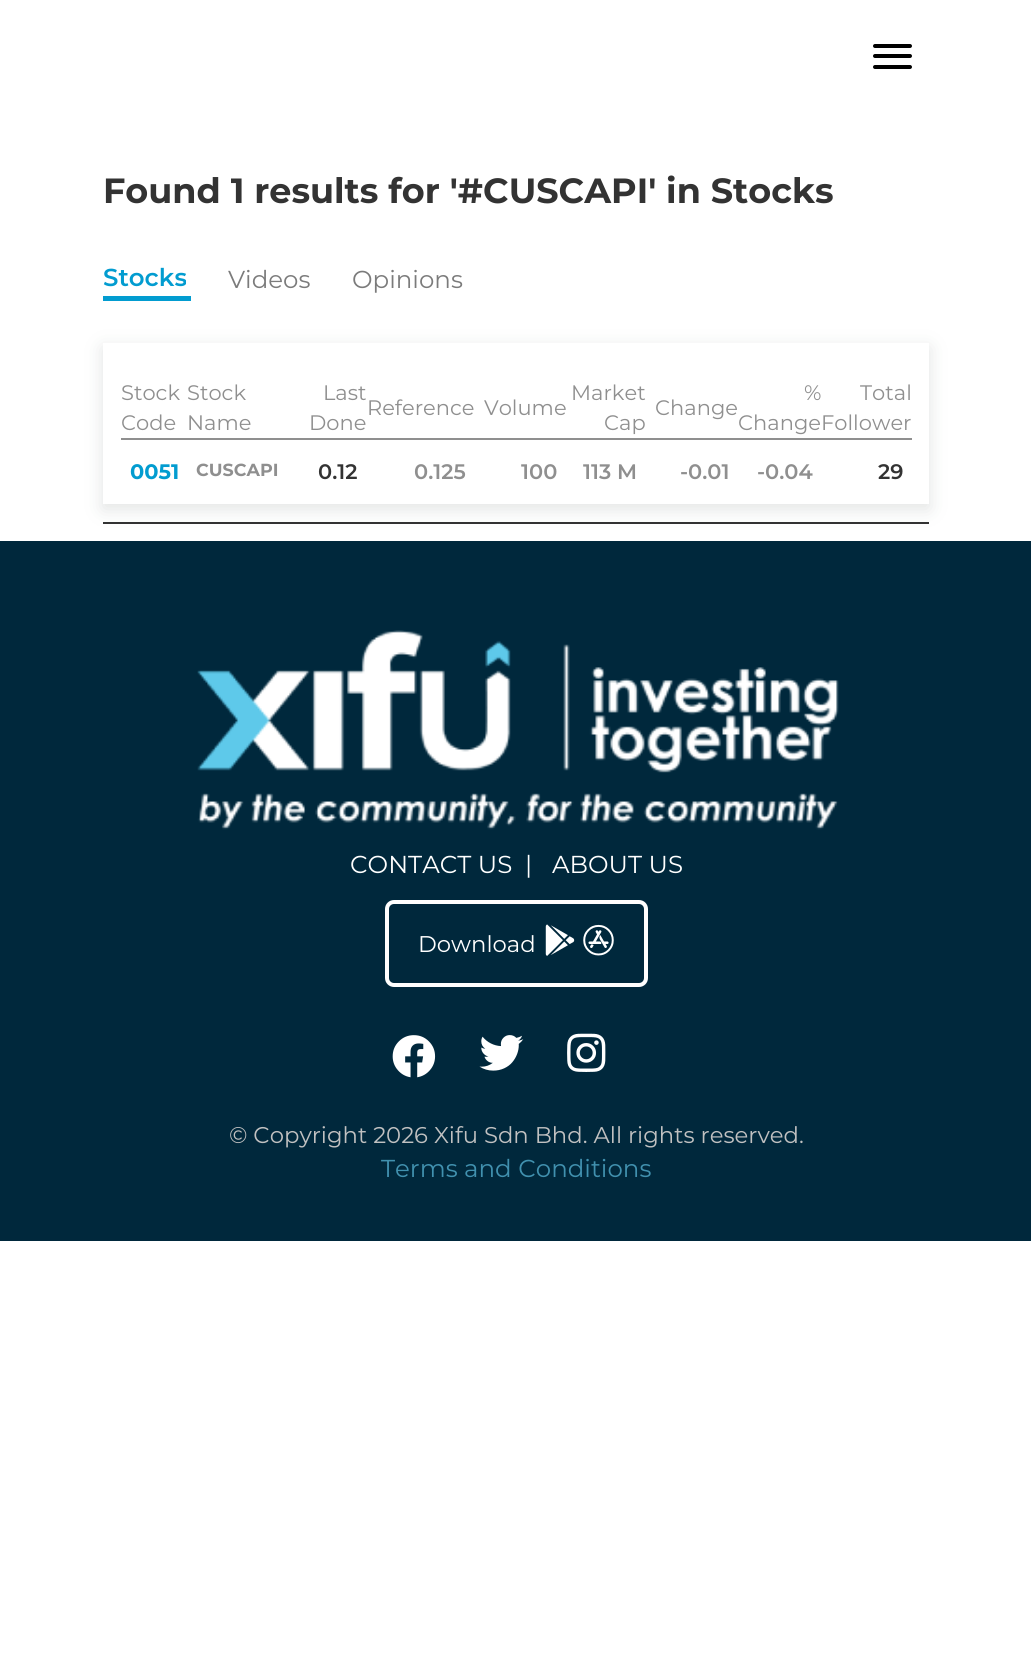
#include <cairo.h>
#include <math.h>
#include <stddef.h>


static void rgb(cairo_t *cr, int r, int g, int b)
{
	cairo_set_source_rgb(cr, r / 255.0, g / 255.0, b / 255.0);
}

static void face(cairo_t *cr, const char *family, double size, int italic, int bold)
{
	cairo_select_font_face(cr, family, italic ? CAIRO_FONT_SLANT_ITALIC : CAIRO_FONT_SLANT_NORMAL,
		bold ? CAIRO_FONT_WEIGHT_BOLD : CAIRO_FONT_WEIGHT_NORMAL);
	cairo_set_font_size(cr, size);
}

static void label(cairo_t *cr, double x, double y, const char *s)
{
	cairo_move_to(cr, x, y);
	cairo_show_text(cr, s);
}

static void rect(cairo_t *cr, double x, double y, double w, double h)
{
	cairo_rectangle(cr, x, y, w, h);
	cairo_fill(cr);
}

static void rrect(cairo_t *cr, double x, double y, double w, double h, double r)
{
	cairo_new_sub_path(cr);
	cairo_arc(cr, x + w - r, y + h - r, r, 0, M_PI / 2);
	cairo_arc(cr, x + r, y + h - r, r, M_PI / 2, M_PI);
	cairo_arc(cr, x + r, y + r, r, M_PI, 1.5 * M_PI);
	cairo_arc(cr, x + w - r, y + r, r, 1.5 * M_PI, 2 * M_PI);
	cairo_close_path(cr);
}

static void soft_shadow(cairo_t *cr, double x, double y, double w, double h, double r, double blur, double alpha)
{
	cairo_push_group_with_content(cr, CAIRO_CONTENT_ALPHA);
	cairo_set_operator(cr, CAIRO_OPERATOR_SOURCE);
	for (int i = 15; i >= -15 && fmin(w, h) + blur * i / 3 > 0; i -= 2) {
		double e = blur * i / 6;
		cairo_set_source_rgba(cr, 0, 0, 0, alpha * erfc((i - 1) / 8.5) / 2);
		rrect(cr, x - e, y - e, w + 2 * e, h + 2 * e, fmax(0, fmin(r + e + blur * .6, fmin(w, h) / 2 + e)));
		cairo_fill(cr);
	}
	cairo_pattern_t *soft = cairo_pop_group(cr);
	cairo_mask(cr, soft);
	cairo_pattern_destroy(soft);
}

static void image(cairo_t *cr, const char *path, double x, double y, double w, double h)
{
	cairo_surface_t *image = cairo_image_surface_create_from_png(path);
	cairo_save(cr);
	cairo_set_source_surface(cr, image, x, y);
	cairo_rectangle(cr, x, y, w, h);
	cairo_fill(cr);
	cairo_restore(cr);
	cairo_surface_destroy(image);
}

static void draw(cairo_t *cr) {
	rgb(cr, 255, 255, 255);
	cairo_paint(cr);
	rgb(cr, 0, 0, 0);
	rrect(cr, 873, 44, 39, 4, 2);
	cairo_fill(cr);
	rrect(cr, 873, 54, 39, 4, 2);
	cairo_fill(cr);
	rrect(cr, 873, 65, 39, 4, 2);
	cairo_fill(cr);
	face(cr, "Montserrat", 35, 0, 1);
	rgb(cr, 51, 51, 51);
	label(cr, 103, 203, "Found 1 results for '#CUSCAPI' in Stocks");
	rgb(cr, 2, 156, 208);
	rect(cr, 103, 296, 88, 5);
	face(cr, "Montserrat SemiBold", 24.5, 0, 0);
	label(cr, 103, 286, "Stocks");
	face(cr, "Montserrat", 24.5, 0, 0);
	rgb(cr, 123, 123, 123);
	label(cr, 228, 288, "Videos");
	label(cr, 352, 288, "Opinions");
	cairo_save(cr);
	cairo_set_fill_rule(cr, CAIRO_FILL_RULE_EVEN_ODD);
	cairo_new_path(cr);
	cairo_move_to(cr, 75, 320);
	cairo_line_to(cr, 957, 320);
	cairo_line_to(cr, 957, 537);
	cairo_line_to(cr, 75, 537);
	cairo_close_path(cr);
	cairo_move_to(cr, 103, 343);
	cairo_line_to(cr, 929, 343);
	cairo_line_to(cr, 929, 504);
	cairo_line_to(cr, 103, 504);
	cairo_close_path(cr);
	cairo_clip(cr);
	rgb(cr, 226, 228, 227);
	soft_shadow(cr, 103, 348, 826, 161, 0, 9, 1);
	cairo_restore(cr);
	rgb(cr, 143, 143, 143);
	rect(cr, 121, 438, 791, 2);
	face(cr, "Montserrat", 21, 0, 0);
	label(cr, 121, 400, "Stock");
	label(cr, 121, 430, "Code");
	label(cr, 187, 400, "Stock");
	label(cr, 187, 430, "Name");
	label(cr, 323, 400, "Last");
	label(cr, 309, 430, "Done");
	label(cr, 571, 400, "Market");
	label(cr, 604, 430, "Cap");
	label(cr, 860, 400, "Total");
	label(cr, 367, 415, "Reference");
	label(cr, 484, 415, "Volume");
	label(cr, 655, 415, "Change");
	label(cr, 804, 400, "%");
	label(cr, 738, 430, "ChangeFollower");
	face(cr, "Montserrat", 21, 0, 1);
	rgb(cr, 2, 156, 208);
	label(cr, 130, 479, "0051");
	face(cr, "Montserrat", 17.5, 0, 1);
	rgb(cr, 143, 143, 143);
	label(cr, 196, 476, "CUSCAPI");
	face(cr, "Montserrat SemiBold", 21, 0, 0);
	rgb(cr, 51, 51, 51);
	label(cr, 318, 479, "0.12");
	rgb(cr, 143, 143, 143);
	label(cr, 414, 479, "0.125");
	label(cr, 521, 479, "100");
	label(cr, 583, 479, "113 M");
	label(cr, 680, 479, "-0.01");
	label(cr, 757, 479, "-0.04");
	rgb(cr, 51, 51, 51);
	label(cr, 878, 479, "29");
	rect(cr, 103, 522, 826, 2);
	rgb(cr, 0, 40, 60);
	rect(cr, 0, 541, 1031, 700);
	image(cr, "image0.png", 197, 630, 642, 200);
	face(cr, "Montserrat", 24.5, 0, 0);
	rgb(cr, 255, 255, 255);
	label(cr, 350, 873, "CONTACT US");
	label(cr, 525, 873, "|");
	label(cr, 552, 873, "ABOUT US");
	rrect(cr, 387, 902, 259, 83, 7);
	cairo_set_line_width(cr, 4);
	cairo_stroke(cr);
	face(cr, "Montserrat", 22.75, 0, 0);
	label(cr, 418, 952, "Download");
	image(cr, "image1.png", 545, 924, 30, 32);
	image(cr, "image2.png", 583, 924, 31, 32);
	image(cr, "image3.png", 392, 1035, 44, 43);
	image(cr, "image4.png", 479, 1035, 45, 36);
	image(cr, "image5.png", 567, 1033, 39, 39);
	rgb(cr, 193, 193, 193);
	label(cr, 229, 1143, "© Copyright 2026 Xifu Sdn Bhd. All rights reserved.");
	face(cr, "Montserrat", 24.5, 0, 0);
	rgb(cr, 65, 145, 175);
	label(cr, 381, 1177, "Terms and Conditions");
}

int main(void) {
	cairo_surface_t *surface = cairo_image_surface_create(CAIRO_FORMAT_RGB24, 1031, 1661);
	cairo_t *cr = cairo_create(surface);
	cairo_font_options_t *options = cairo_font_options_create();
	cairo_font_options_set_hint_metrics(options, CAIRO_HINT_METRICS_OFF);
	cairo_font_options_set_hint_style(options, CAIRO_HINT_STYLE_NONE);
	cairo_set_font_options(cr, options);
	cairo_set_miter_limit(cr, 4);
	draw(cr);
	cairo_surface_write_to_png(surface, "render.png");
	cairo_font_options_destroy(options);
	cairo_destroy(cr);
	cairo_surface_destroy(surface);
	return 0;
}
